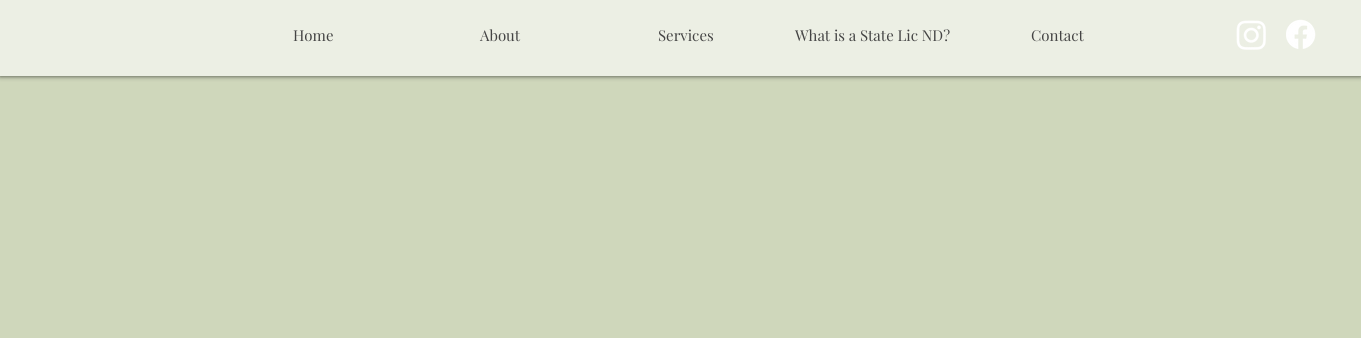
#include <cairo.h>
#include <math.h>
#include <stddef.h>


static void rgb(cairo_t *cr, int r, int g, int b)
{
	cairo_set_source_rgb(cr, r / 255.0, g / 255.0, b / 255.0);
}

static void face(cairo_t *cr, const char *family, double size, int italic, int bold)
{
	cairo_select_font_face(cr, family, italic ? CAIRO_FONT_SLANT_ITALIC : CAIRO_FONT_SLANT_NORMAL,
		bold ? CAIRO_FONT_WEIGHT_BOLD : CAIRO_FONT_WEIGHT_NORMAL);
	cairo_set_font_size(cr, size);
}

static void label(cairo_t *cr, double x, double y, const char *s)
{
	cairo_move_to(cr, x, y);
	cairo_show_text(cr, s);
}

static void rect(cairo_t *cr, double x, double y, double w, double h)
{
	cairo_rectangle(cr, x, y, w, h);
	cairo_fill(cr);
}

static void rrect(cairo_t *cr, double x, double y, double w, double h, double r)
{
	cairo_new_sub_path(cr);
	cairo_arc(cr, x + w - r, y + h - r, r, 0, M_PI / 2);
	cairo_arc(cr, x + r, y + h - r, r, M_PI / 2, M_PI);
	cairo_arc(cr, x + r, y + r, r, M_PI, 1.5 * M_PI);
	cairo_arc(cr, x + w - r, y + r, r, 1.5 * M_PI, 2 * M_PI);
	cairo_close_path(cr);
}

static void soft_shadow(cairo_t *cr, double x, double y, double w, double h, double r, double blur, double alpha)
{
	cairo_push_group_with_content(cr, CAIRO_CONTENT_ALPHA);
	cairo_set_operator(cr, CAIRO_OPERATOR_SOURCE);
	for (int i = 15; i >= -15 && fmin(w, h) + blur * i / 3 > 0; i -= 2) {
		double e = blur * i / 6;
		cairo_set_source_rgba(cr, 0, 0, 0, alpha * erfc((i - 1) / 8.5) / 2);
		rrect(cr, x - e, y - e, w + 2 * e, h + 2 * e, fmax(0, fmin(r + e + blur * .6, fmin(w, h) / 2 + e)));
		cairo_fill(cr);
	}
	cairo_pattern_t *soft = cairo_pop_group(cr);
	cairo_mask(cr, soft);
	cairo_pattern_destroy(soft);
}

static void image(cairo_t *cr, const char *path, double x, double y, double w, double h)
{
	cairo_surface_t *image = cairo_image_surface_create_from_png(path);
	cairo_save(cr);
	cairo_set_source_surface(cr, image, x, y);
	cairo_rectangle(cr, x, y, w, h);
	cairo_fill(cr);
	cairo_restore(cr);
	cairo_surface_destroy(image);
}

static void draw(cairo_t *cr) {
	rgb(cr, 207, 215, 187);
	cairo_paint(cr);
	rgb(cr, 0, 0, 0);
	soft_shadow(cr, 0, 0, 1361, 76, 0, 2.5, 0.7);
	rgb(cr, 236, 239, 228);
	rect(cr, 0, 0, 1361, 76);
	face(cr, "Playfair Display", 15, 0, 0);
	rgb(cr, 68, 68, 68);
	label(cr, 293, 41, "Home");
	label(cr, 480, 41, "About");
	label(cr, 658, 41, "Services");
	label(cr, 795, 41, "What is a State Lic ND?");
	label(cr, 1031, 41, "Contact");
	image(cr, "image0.png", 1236, 20, 30, 30);
	image(cr, "image1.png", 1286, 19, 30, 30);
}

int main(void) {
	cairo_surface_t *surface = cairo_image_surface_create(CAIRO_FORMAT_RGB24, 1361, 338);
	cairo_t *cr = cairo_create(surface);
	cairo_font_options_t *options = cairo_font_options_create();
	cairo_font_options_set_hint_metrics(options, CAIRO_HINT_METRICS_OFF);
	cairo_font_options_set_hint_style(options, CAIRO_HINT_STYLE_NONE);
	cairo_set_font_options(cr, options);
	cairo_set_miter_limit(cr, 4);
	draw(cr);
	cairo_surface_write_to_png(surface, "render.png");
	cairo_font_options_destroy(options);
	cairo_destroy(cr);
	cairo_surface_destroy(surface);
	return 0;
}
